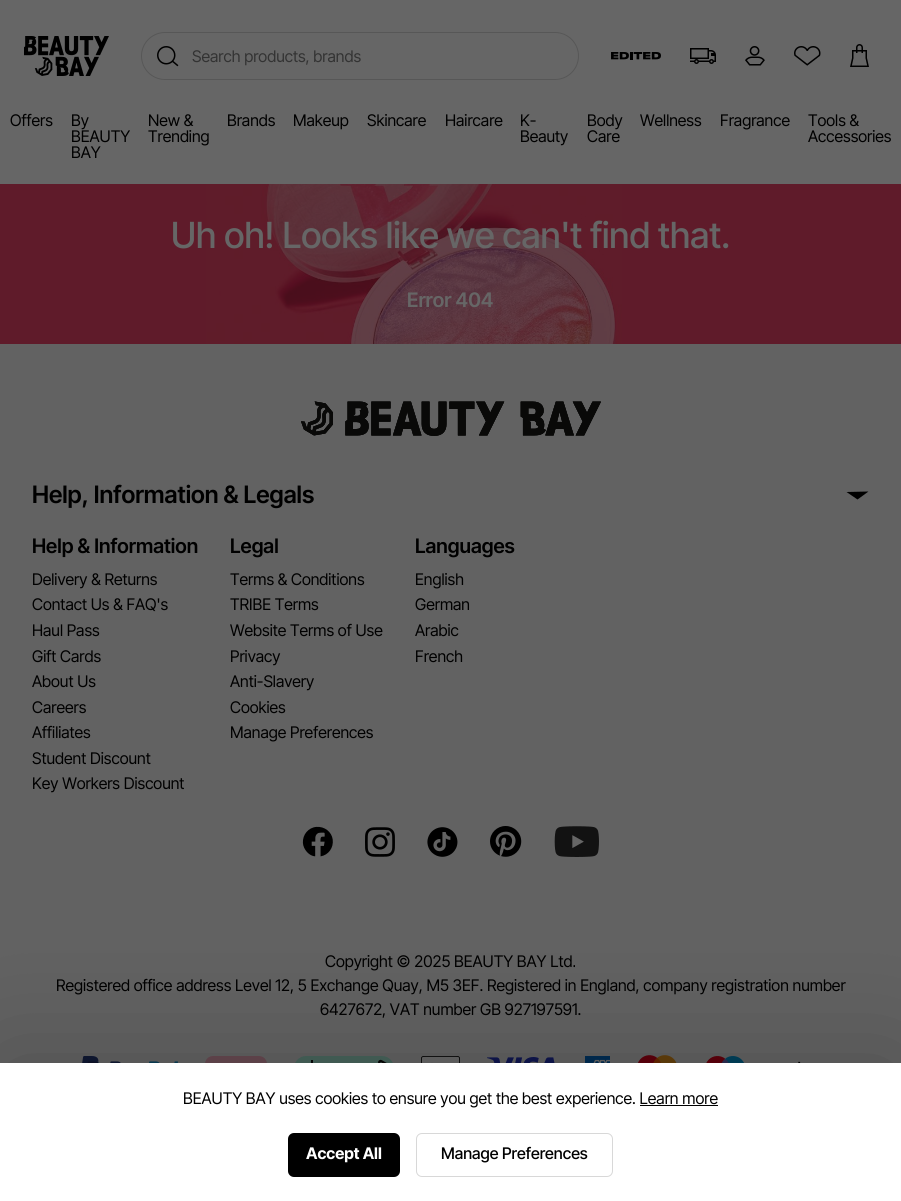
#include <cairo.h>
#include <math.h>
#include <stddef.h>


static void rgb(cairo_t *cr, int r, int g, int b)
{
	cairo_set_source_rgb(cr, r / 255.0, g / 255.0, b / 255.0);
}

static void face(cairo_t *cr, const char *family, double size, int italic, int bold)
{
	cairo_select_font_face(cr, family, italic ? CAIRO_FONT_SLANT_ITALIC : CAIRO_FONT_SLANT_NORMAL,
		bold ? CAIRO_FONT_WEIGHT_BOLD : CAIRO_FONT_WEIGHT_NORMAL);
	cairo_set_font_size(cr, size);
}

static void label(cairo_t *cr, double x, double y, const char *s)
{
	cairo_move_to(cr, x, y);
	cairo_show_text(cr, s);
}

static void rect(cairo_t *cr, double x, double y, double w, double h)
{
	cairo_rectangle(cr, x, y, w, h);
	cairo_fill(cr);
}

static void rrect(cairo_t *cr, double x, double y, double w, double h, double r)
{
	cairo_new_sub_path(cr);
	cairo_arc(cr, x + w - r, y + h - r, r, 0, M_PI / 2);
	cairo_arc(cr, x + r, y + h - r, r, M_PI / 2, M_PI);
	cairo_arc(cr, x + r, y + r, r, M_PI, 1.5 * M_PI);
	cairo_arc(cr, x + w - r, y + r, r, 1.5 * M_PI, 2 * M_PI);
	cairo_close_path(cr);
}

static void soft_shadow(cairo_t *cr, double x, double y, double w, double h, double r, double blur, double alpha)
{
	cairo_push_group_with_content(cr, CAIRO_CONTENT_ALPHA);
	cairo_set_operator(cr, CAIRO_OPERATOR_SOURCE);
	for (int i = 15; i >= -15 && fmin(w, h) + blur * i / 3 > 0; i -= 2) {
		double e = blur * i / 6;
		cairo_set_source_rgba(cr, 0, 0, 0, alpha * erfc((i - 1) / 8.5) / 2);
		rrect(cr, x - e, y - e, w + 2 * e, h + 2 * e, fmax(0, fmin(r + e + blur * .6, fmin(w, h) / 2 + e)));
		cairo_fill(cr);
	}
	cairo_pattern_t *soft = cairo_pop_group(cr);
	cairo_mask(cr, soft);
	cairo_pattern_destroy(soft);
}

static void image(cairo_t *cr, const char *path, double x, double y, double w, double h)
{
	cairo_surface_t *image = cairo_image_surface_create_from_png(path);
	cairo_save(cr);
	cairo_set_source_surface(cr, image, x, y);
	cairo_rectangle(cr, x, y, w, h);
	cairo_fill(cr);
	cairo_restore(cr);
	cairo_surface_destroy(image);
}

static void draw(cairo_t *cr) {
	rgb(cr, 102, 102, 102);
	cairo_paint(cr);
	image(cr, "image0.png", 24, 36, 85, 40);
	image(cr, "image1.png", 157, 46, 22, 21);
	rrect(cr, 141.5, 32.5, 437, 47, 23.5);
	rgb(cr, 87, 87, 87);
	cairo_set_line_width(cr, 1);
	cairo_stroke(cr);
	face(cr, "Inter Tight", 16, 0, 0);
	rgb(cr, 51, 51, 51);
	label(cr, 192, 62, "Search products, brands");
	image(cr, "image2.png", 611, 52, 50, 8);
	image(cr, "image3.png", 690, 48, 26, 16);
	image(cr, "image4.png", 745, 46, 20, 20);
	image(cr, "image5.png", 794, 46, 27, 20);
	image(cr, "image6.png", 850, 44, 19, 23);
	rgb(cr, 0, 0, 0);
	label(cr, 10, 126, "Offers");
	label(cr, 71, 126, "By");
	label(cr, 71, 142, "BEAUTY");
	label(cr, 71, 158, "BAY");
	label(cr, 148, 126, "New &");
	label(cr, 148, 142, "Trending");
	label(cr, 227, 126, "Brands");
	label(cr, 293, 126, "Makeup");
	label(cr, 367, 126, "Skincare");
	label(cr, 445, 126, "Haircare");
	label(cr, 520, 126, "K-");
	label(cr, 520, 142, "Beauty");
	label(cr, 587, 126, "Body");
	label(cr, 587, 142, "Care");
	label(cr, 640, 126, "Wellness");
	label(cr, 720, 126, "Fragrance");
	label(cr, 808, 126, "Tools &");
	label(cr, 808, 142, "Accessories");
	rgb(cr, 95, 27, 42);
	rect(cr, 0, 184, 901, 160);
	image(cr, "image7.png", 206, 184, 416, 160);
	face(cr, "Inter Tight Medium", 36, 0, 0);
	rgb(cr, 102, 102, 102);
	label(cr, 171, 248, "Uh oh! Looks like we can't find that.");
	face(cr, "Inter Tight SemiBold", 20, 0, 0);
	label(cr, 407, 307, "Error 404");
	rgb(cr, 98, 98, 98);
	rect(cr, 0, 344, 901, 719);
	image(cr, "image8.png", 301, 401, 300, 35);
	face(cr, "Inter Tight SemiBold", 24, 0, 0);
	rgb(cr, 0, 0, 0);
	label(cr, 32, 503, "Help, Information & Legals");
	cairo_new_path(cr);
	cairo_move_to(cr, 857.5, 499.5);
	cairo_line_to(cr, 868.5, 491.5);
	cairo_line_to(cr, 846.5, 492);
	cairo_close_path(cr);
	cairo_fill(cr);
	face(cr, "Inter Tight SemiBold", 20, 0, 0);
	label(cr, 32, 553, "Help & Information");
	face(cr, "Inter Tight", 16, 0, 0);
	label(cr, 32, 585, "Delivery & Returns");
	label(cr, 32, 610, "Contact Us & FAQ's");
	label(cr, 32, 636, "Haul Pass");
	label(cr, 32, 662, "Gift Cards");
	label(cr, 32, 687, "About Us");
	label(cr, 32, 713, "Careers");
	label(cr, 32, 738, "Affiliates");
	label(cr, 32, 764, "Student Discount");
	label(cr, 32, 789, "Key Workers Discount");
	face(cr, "Inter Tight SemiBold", 20, 0, 0);
	label(cr, 230, 553, "Legal");
	face(cr, "Inter Tight", 16, 0, 0);
	label(cr, 230, 585, "Terms & Conditions");
	label(cr, 230, 610, "TRIBE Terms");
	label(cr, 230, 636, "Website Terms of Use");
	label(cr, 230, 662, "Privacy");
	label(cr, 230, 687, "Anti-Slavery");
	label(cr, 230, 713, "Cookies");
	label(cr, 230, 738, "Manage Preferences");
	face(cr, "Inter Tight SemiBold", 20, 0, 0);
	label(cr, 415, 553, "Languages");
	face(cr, "Inter Tight", 16, 0, 0);
	label(cr, 415, 585, "English");
	label(cr, 415, 610, "German");
	label(cr, 415, 636, "Arabic");
	label(cr, 415, 662, "French");
	image(cr, "image9.png", 302, 826, 31, 31);
	image(cr, "image10.png", 365, 827, 30, 30);
	image(cr, "image11.png", 427, 827, 31, 30);
	image(cr, "image12.png", 490, 826, 32, 31);
	image(cr, "image13.png", 554, 826, 45, 31);
	label(cr, 325, 967, "Copyright © 2025 BEAUTY BAY Ltd.");
	label(cr, 56, 991, "Registered office address Level 12, 5 Exchange Quay, M5 3EF. Registered in England, company registration number");
	label(cr, 320, 1015, "6427672, VAT number GB 927197591.");
	image(cr, "image14.png", 82, 1056, 96, 7);
	image(cr, "image15.png", 205, 1056, 62, 7);
	image(cr, "image16.png", 295, 1056, 98, 7);
	image(cr, "image17.png", 421, 1056, 39, 7);
	image(cr, "image18.png", 487, 1057, 68, 6);
	image(cr, "image19.png", 585, 1056, 25, 7);
	image(cr, "image20.png", 638, 1055, 39, 8);
	image(cr, "image21.png", 706, 1056, 95, 7);
	rgb(cr, 0, 0, 0);
	soft_shadow(cr, 0, 1063, 901, 138, 0, 60, 0.2);
	rgb(cr, 255, 255, 255);
	rect(cr, 0, 1063, 901, 138);
	rgb(cr, 0, 0, 0);
	label(cr, 183, 1104, "BEAUTY BAY uses cookies to ensure you get the best experience. Learn more");
	rect(cr, 640, 1105, 78, 1);
	rrect(cr, 289, 1134, 110, 42, 5);
	cairo_fill_preserve(cr);
	cairo_set_line_width(cr, 2);
	cairo_stroke(cr);
	face(cr, "Inter Tight", 16, 0, 1);
	rgb(cr, 255, 255, 255);
	label(cr, 306, 1159, "Accept All");
	rrect(cr, 416.5, 1133.5, 196, 43, 5.5);
	rgb(cr, 216, 216, 216);
	cairo_set_line_width(cr, 1);
	cairo_stroke(cr);
	face(cr, "Inter Tight Medium", 16, 0, 0);
	rgb(cr, 0, 0, 0);
	label(cr, 441, 1159, "Manage Preferences");
}

int main(void) {
	cairo_surface_t *surface = cairo_image_surface_create(CAIRO_FORMAT_RGB24, 901, 1201);
	cairo_t *cr = cairo_create(surface);
	cairo_font_options_t *options = cairo_font_options_create();
	cairo_font_options_set_hint_metrics(options, CAIRO_HINT_METRICS_OFF);
	cairo_font_options_set_hint_style(options, CAIRO_HINT_STYLE_NONE);
	cairo_set_font_options(cr, options);
	cairo_set_miter_limit(cr, 4);
	draw(cr);
	cairo_surface_write_to_png(surface, "render.png");
	cairo_font_options_destroy(options);
	cairo_destroy(cr);
	cairo_surface_destroy(surface);
	return 0;
}
